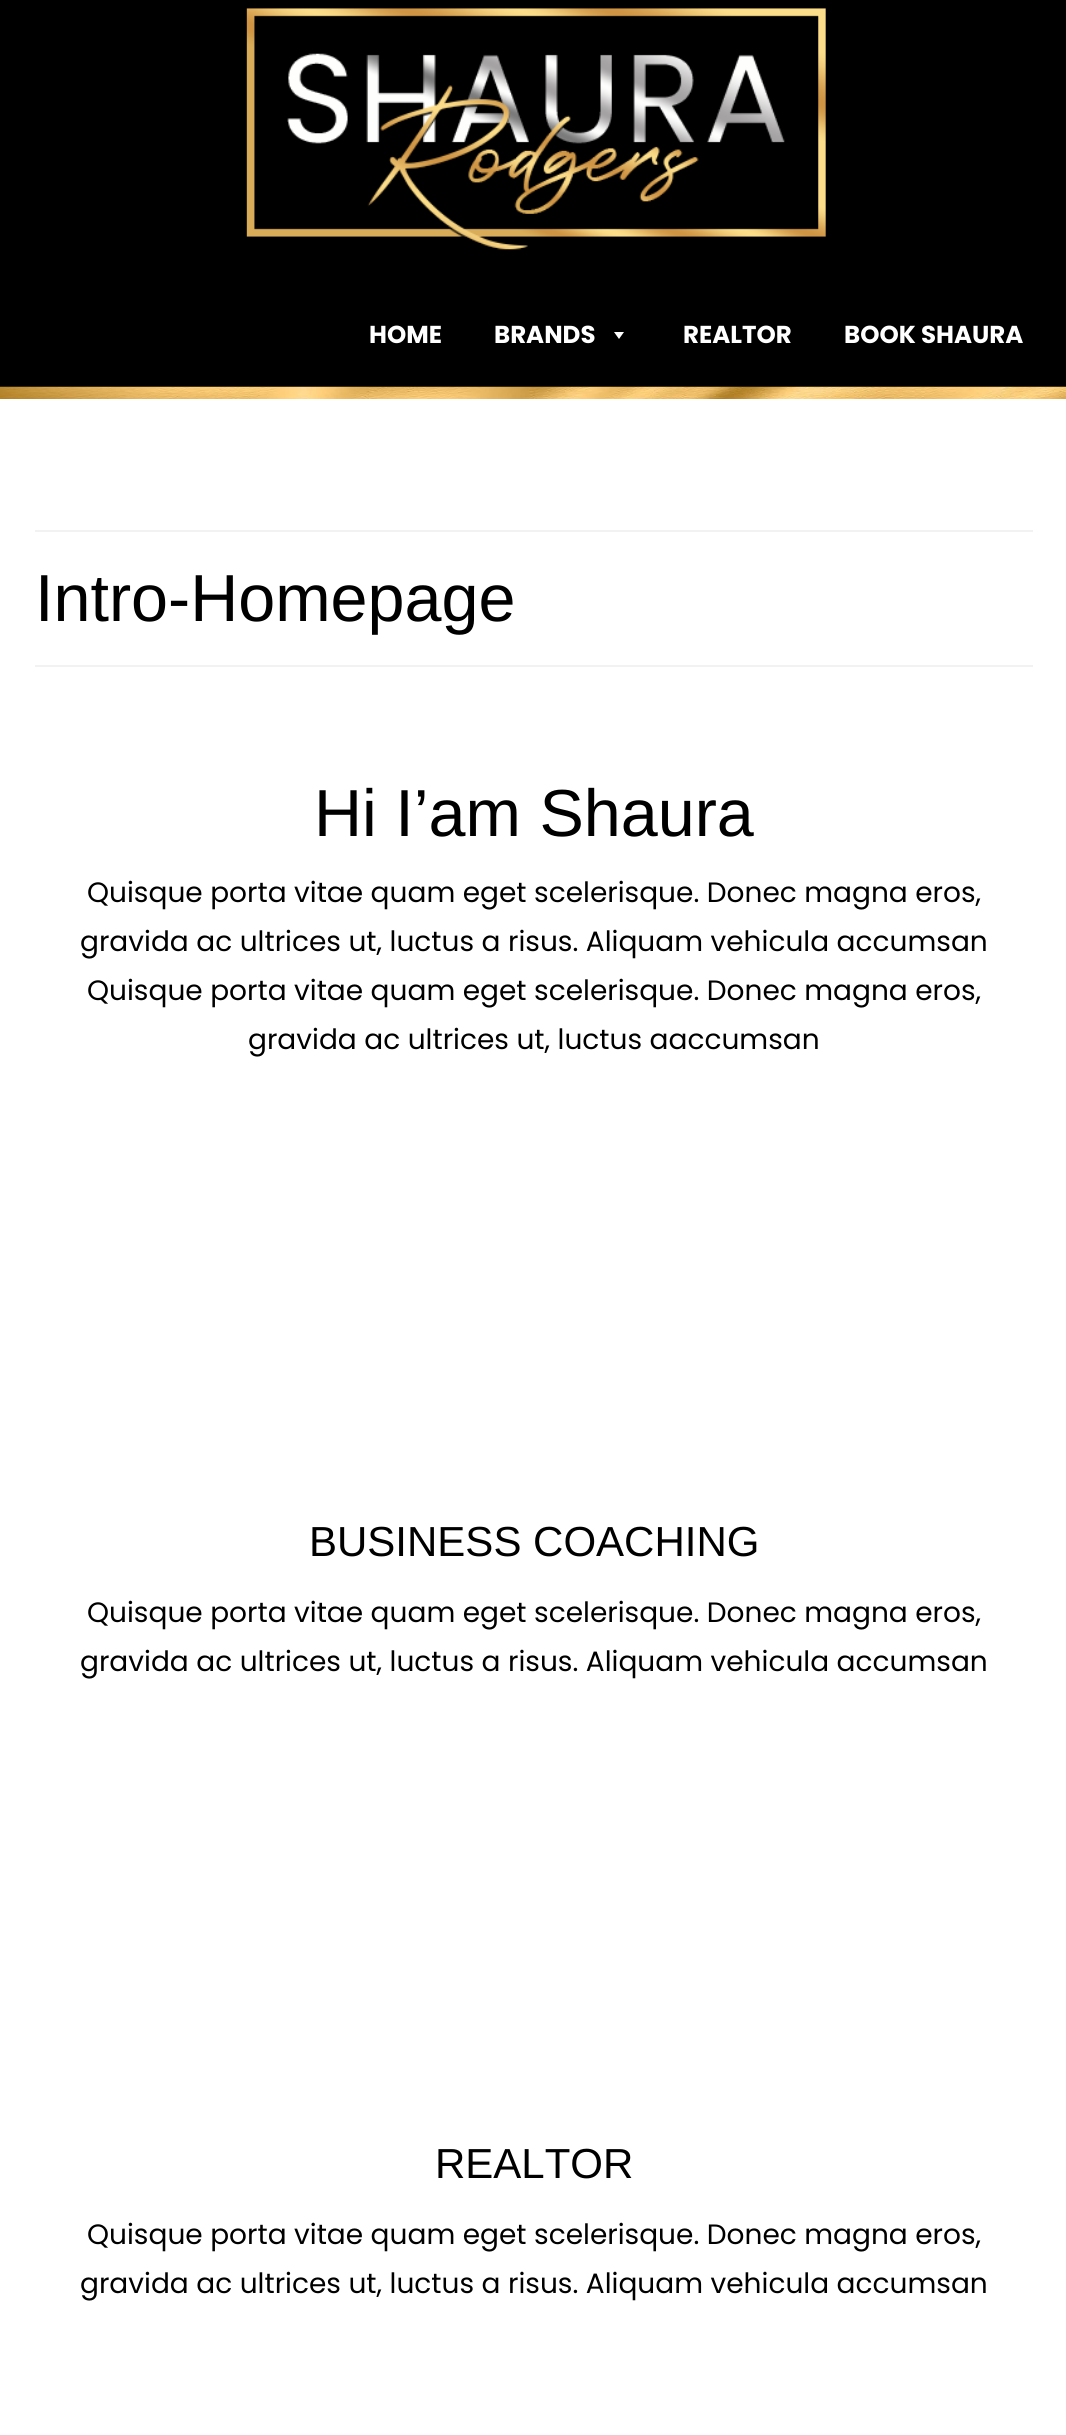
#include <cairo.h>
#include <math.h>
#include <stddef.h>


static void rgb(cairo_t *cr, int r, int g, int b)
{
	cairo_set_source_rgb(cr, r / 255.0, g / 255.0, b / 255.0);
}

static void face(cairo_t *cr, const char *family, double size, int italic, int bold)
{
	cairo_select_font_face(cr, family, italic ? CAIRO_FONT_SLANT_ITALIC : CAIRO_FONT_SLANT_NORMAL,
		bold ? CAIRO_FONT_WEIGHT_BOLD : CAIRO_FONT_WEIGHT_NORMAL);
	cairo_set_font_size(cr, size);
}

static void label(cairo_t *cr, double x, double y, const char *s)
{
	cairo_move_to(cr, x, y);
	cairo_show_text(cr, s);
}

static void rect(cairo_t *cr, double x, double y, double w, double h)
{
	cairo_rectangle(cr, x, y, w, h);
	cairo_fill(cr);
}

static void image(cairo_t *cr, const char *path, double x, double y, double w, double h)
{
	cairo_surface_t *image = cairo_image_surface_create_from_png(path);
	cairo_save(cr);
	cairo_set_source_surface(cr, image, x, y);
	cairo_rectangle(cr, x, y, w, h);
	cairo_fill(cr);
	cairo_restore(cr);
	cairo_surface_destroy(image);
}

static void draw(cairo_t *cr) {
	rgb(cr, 255, 255, 255);
	cairo_paint(cr);
	rgb(cr, 0, 0, 0);
	rect(cr, 0, 0, 1066, 387);
	image(cr, "image0.png", 246, 8, 580, 242);
	face(cr, "Poppins", 24.5, 0, 1);
	rgb(cr, 255, 255, 255);
	label(cr, 369, 343, "HOME");
	label(cr, 494, 343, "BRANDS");
	cairo_new_path(cr);
	cairo_move_to(cr, 624, 332);
	cairo_line_to(cr, 619, 339);
	cairo_line_to(cr, 614, 332);
	cairo_close_path(cr);
	cairo_fill(cr);
	label(cr, 683, 343, "REALTOR");
	label(cr, 844, 343, "BOOK SHAURA");
	image(cr, "image1.png", 0, 386, 1066, 13);
	rgb(cr, 242, 242, 242);
	rect(cr, 35, 530, 998, 2);
	rect(cr, 35, 665, 998, 2);
	face(cr, "Liberation Sans", 66.5, 0, 0);
	rgb(cr, 0, 0, 0);
	label(cr, 35, 621, "Intro-Homepage");
	label(cr, 314, 836, "Hi I’am Shaura");
	face(cr, "Poppins", 28, 0, 0);
	label(cr, 87, 902, "Quisque porta vitae quam eget scelerisque. Donec magna eros,");
	label(cr, 80, 951, "gravida ac ultrices ut, luctus a risus. Aliquam vehicula accumsan");
	label(cr, 87, 1000, "Quisque porta vitae quam eget scelerisque. Donec magna eros,");
	label(cr, 248, 1049, "gravida ac ultrices ut, luctus aaccumsan");
	face(cr, "Liberation Sans", 42, 0, 0);
	label(cr, 309, 1556, "BUSINESS COACHING");
	face(cr, "Poppins", 28, 0, 0);
	label(cr, 87, 1622, "Quisque porta vitae quam eget scelerisque. Donec magna eros,");
	label(cr, 80, 1671, "gravida ac ultrices ut, luctus a risus. Aliquam vehicula accumsan");
	face(cr, "Liberation Sans", 42, 0, 0);
	label(cr, 435, 2178, "REALTOR");
	face(cr, "Poppins", 28, 0, 0);
	label(cr, 87, 2244, "Quisque porta vitae quam eget scelerisque. Donec magna eros,");
	label(cr, 80, 2293, "gravida ac ultrices ut, luctus a risus. Aliquam vehicula accumsan");
}

int main(void) {
	cairo_surface_t *surface = cairo_image_surface_create(CAIRO_FORMAT_RGB24, 1066, 2435);
	cairo_t *cr = cairo_create(surface);
	cairo_font_options_t *options = cairo_font_options_create();
	cairo_font_options_set_hint_metrics(options, CAIRO_HINT_METRICS_OFF);
	cairo_font_options_set_hint_style(options, CAIRO_HINT_STYLE_NONE);
	cairo_set_font_options(cr, options);
	cairo_set_miter_limit(cr, 4);
	draw(cr);
	cairo_surface_write_to_png(surface, "render.png");
	cairo_font_options_destroy(options);
	cairo_destroy(cr);
	cairo_surface_destroy(surface);
	return 0;
}
